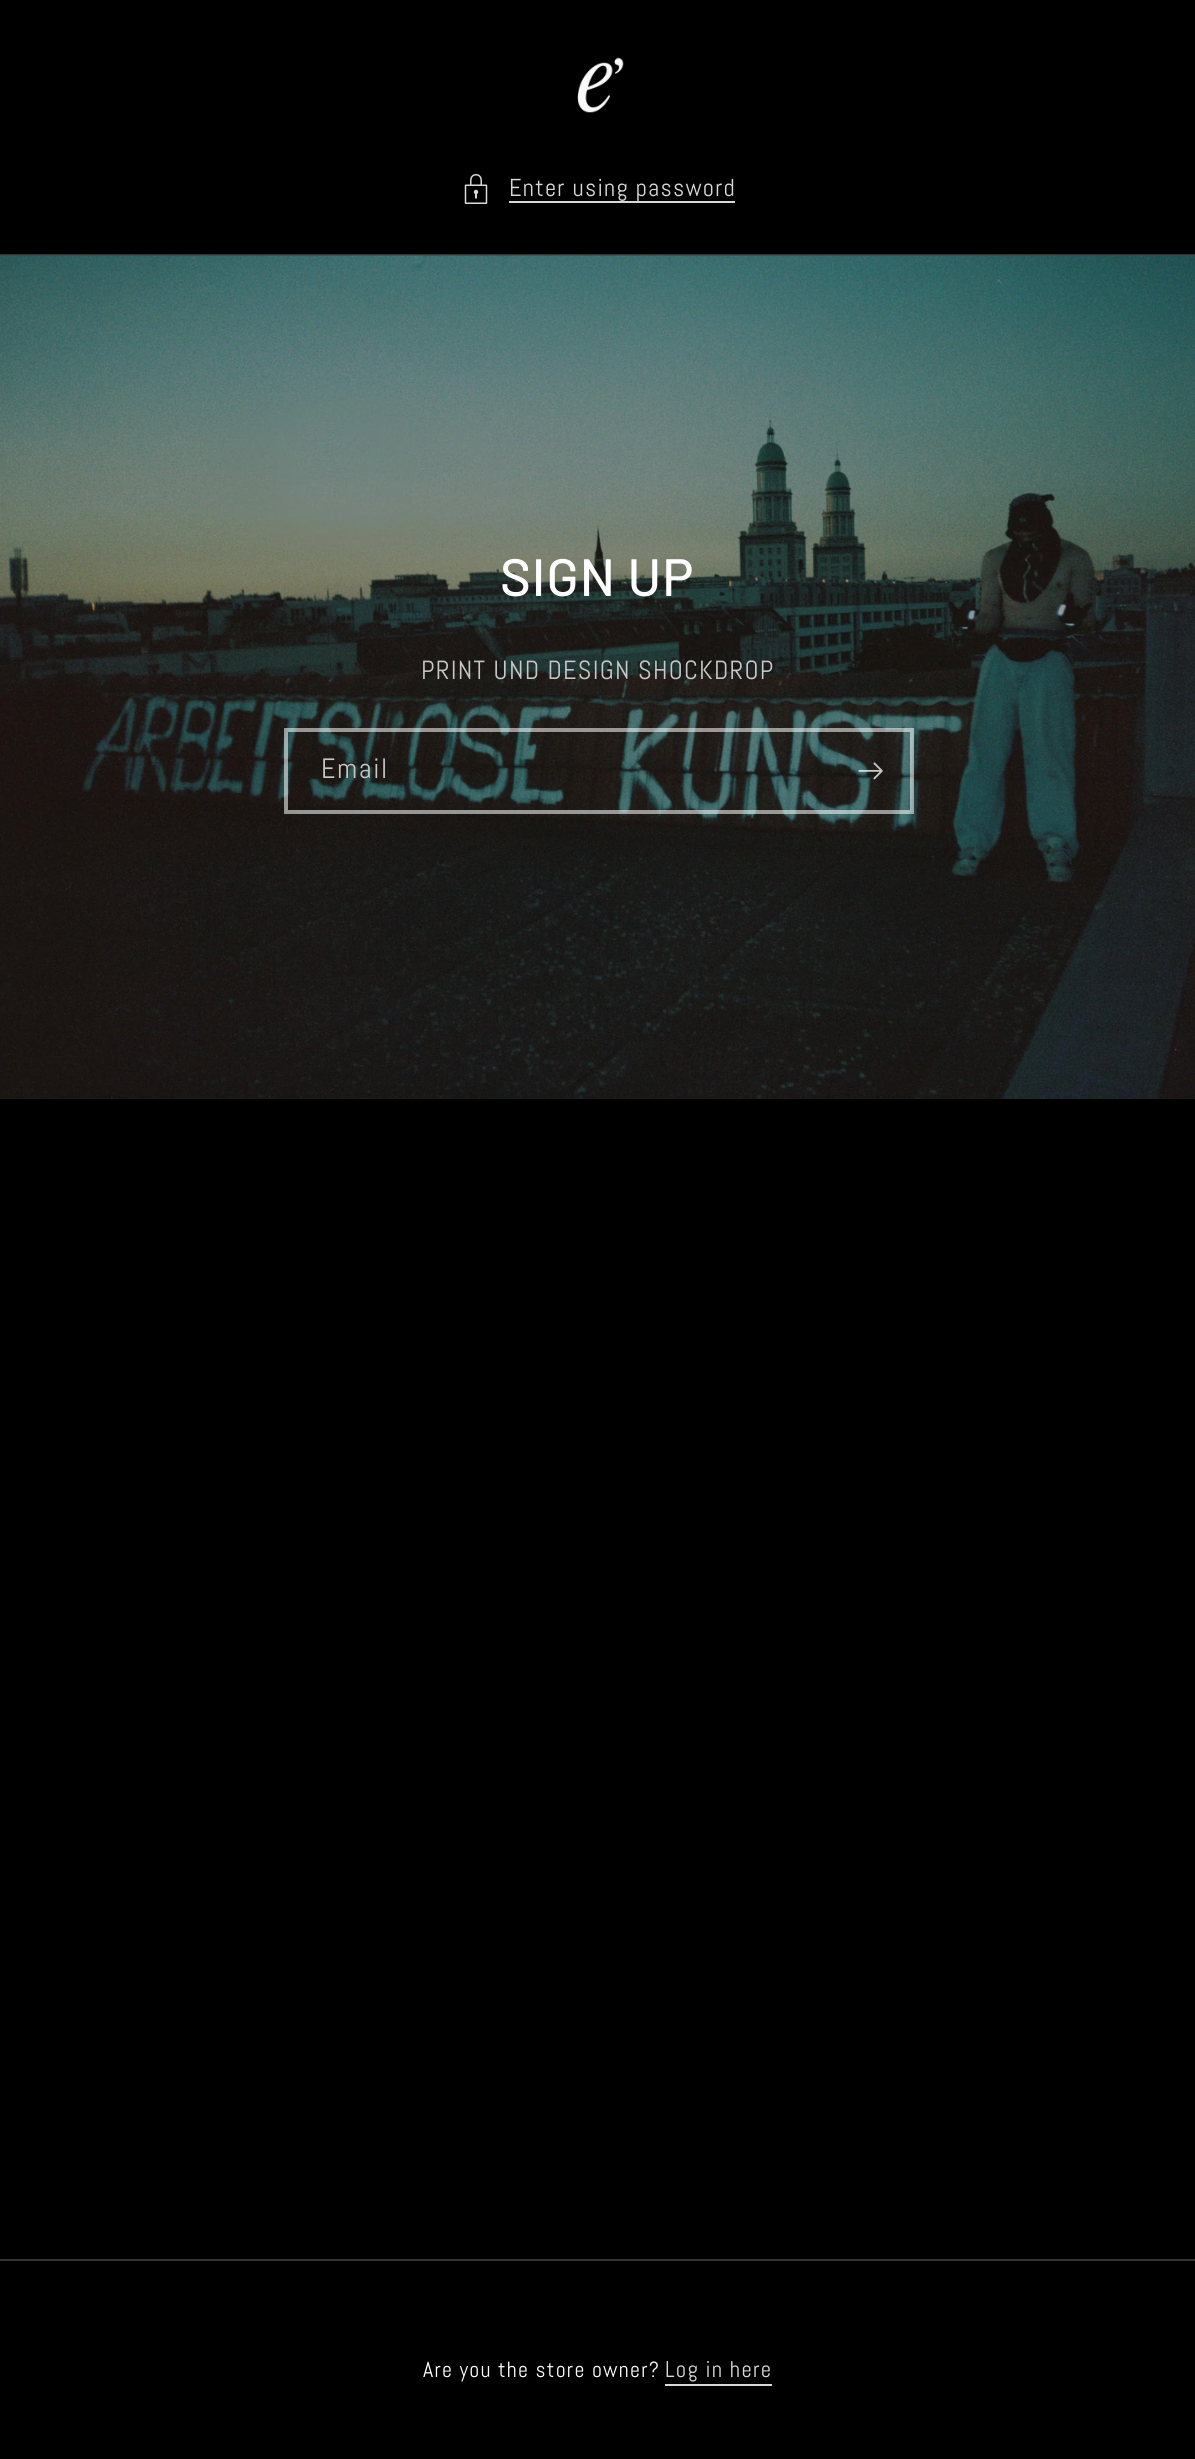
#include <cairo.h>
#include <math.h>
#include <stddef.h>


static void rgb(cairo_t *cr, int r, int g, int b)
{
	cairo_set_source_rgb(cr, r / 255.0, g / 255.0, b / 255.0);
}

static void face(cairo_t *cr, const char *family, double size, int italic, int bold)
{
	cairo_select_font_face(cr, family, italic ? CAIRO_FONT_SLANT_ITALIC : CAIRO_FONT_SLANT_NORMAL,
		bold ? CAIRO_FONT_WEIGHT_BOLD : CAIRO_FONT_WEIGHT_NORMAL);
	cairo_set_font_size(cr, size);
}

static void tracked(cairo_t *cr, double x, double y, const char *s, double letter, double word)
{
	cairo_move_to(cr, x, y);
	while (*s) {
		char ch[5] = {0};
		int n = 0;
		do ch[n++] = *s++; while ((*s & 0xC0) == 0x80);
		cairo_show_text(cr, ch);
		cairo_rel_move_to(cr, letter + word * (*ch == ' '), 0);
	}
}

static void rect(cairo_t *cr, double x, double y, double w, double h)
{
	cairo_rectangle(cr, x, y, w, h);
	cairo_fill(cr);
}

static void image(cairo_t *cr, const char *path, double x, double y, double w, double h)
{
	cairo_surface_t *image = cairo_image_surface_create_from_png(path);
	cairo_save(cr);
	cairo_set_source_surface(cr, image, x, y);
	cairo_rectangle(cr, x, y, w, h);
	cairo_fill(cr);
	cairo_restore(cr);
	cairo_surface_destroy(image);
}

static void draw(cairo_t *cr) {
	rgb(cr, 0, 0, 0);
	cairo_paint(cr);
	image(cr, "image0.png", 577, 57, 47, 56);
	image(cr, "image1.png", 464, 174, 24, 30);
	face(cr, "Abel", 24.5, 0, 0);
	rgb(cr, 217, 217, 217);
	tracked(cr, 509, 196, "Enter using password", 1.25, 0);
	rect(cr, 509, 201, 226, 2);
	rgb(cr, 51, 51, 51);
	rect(cr, 0, 254, 1195, 2);
	image(cr, "image2.png", 0, 255, 1195, 844);
	face(cr, "Barlow Medium", 52.5, 0, 0);
	rgb(cr, 255, 255, 255);
	tracked(cr, 500, 596, "SIGN UP", 1, 0);
	face(cr, "Abel", 26.25, 0, 0);
	rgb(cr, 199, 200, 200);
	tracked(cr, 421, 679, "PRINT UND DESIGN SHOCKDROP", 1.25, 0);
	cairo_rectangle(cr, 286, 730, 626, 82);
	cairo_set_source_rgba(cr, 1, 1, 1, 0.55);
	cairo_set_line_width(cr, 4);
	cairo_stroke(cr);
	face(cr, "Abel", 28, 0, 0);
	rgb(cr, 199, 200, 200);
	tracked(cr, 321, 778, "Email", 1.75, 0);
	image(cr, "image3.png", 858, 762, 25, 18);
	rgb(cr, 51, 51, 51);
	rect(cr, 0, 2259, 1195, 2);
	face(cr, "Abel", 21.9, 0, 0);
	rgb(cr, 255, 255, 255);
	tracked(cr, 423, 2377, "Are you the store owner?", 1.25, 0);
	face(cr, "Abel", 22.75, 0, 0);
	rgb(cr, 217, 217, 217);
	tracked(cr, 665, 2377, "Log in here", 1.25, 0);
	rect(cr, 665, 2384, 107, 2);
}

int main(void) {
	cairo_surface_t *surface = cairo_image_surface_create(CAIRO_FORMAT_RGB24, 1195, 2459);
	cairo_t *cr = cairo_create(surface);
	cairo_font_options_t *options = cairo_font_options_create();
	cairo_font_options_set_hint_metrics(options, CAIRO_HINT_METRICS_OFF);
	cairo_font_options_set_hint_style(options, CAIRO_HINT_STYLE_NONE);
	cairo_set_font_options(cr, options);
	cairo_set_miter_limit(cr, 4);
	draw(cr);
	cairo_surface_write_to_png(surface, "render.png");
	cairo_font_options_destroy(options);
	cairo_destroy(cr);
	cairo_surface_destroy(surface);
	return 0;
}
